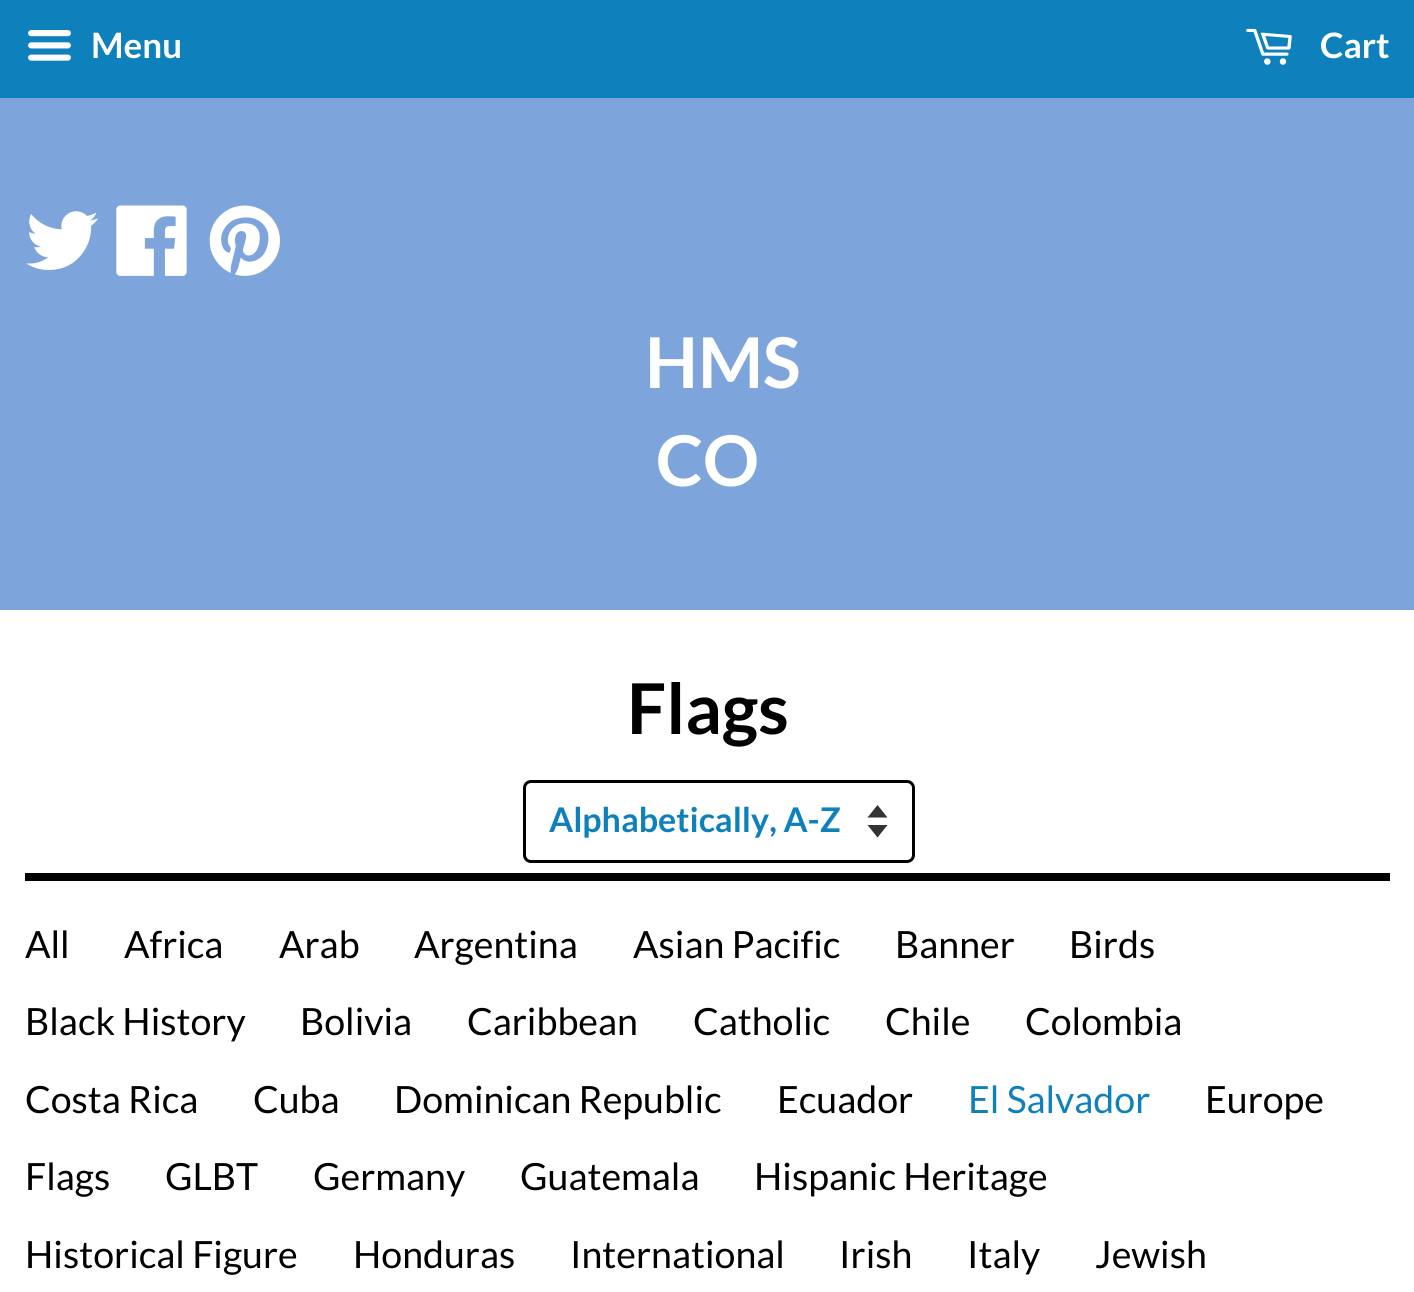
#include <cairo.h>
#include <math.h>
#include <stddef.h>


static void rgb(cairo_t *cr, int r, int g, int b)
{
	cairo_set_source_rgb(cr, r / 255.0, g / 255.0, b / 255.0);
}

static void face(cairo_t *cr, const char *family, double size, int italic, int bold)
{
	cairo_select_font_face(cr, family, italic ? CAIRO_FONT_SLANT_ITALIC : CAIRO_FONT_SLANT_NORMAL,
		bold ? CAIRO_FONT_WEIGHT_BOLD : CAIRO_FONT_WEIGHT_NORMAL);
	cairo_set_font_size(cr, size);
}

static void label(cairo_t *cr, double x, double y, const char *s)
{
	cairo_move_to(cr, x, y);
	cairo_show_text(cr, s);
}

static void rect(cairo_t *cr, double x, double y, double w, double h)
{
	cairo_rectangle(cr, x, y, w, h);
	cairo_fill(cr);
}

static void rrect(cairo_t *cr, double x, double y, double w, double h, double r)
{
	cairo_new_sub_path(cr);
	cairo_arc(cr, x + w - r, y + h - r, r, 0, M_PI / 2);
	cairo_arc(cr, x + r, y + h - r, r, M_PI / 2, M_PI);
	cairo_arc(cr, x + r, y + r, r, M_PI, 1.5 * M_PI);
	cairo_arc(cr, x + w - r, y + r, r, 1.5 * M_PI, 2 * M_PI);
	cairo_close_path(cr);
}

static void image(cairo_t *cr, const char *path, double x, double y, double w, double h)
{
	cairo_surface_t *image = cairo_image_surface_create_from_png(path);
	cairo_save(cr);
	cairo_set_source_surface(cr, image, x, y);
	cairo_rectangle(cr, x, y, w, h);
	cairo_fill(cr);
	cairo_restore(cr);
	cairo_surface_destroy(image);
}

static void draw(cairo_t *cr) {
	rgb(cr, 255, 255, 255);
	cairo_paint(cr);
	rgb(cr, 14, 128, 187);
	rect(cr, 0, 0, 1414, 98);
	image(cr, "image0.png", 28, 30, 43, 31);
	face(cr, "Lato", 35, 0, 1);
	rgb(cr, 255, 255, 255);
	label(cr, 91, 58, "Menu");
	image(cr, "image1.png", 1246, 28, 46, 37);
	label(cr, 1320, 58, "Cart");
	rgb(cr, 126, 165, 219);
	rect(cr, 0, 98, 1414, 512);
	image(cr, "image2.png", 26, 211, 73, 59);
	image(cr, "image3.png", 116, 205, 71, 71);
	image(cr, "image4.png", 209, 205, 71, 71);
	face(cr, "Lato", 70, 0, 1);
	rgb(cr, 255, 255, 255);
	label(cr, 645, 388, "HMS");
	label(cr, 656, 486, "CO");
	rgb(cr, 0, 0, 0);
	rect(cr, 25, 873, 1365, 8);
	label(cr, 627, 734, "Flags");
	rgb(cr, 51, 51, 51);
	cairo_new_path(cr);
	cairo_move_to(cr, 867.5, 825);
	cairo_line_to(cr, 877.5, 837.5);
	cairo_line_to(cr, 887.5, 825);
	cairo_close_path(cr);
	cairo_move_to(cr, 877.5, 805);
	cairo_line_to(cr, 867.5, 817.5);
	cairo_line_to(cr, 887.5, 817.5);
	cairo_close_path(cr);
	cairo_fill(cr);
	rrect(cr, 524.5, 781.5, 389, 80, 6.5);
	rgb(cr, 0, 0, 0);
	cairo_set_line_width(cr, 3);
	cairo_stroke(cr);
	face(cr, "Lato", 34, 0, 1);
	rgb(cr, 14, 128, 187);
	label(cr, 549, 832, "Alphabetically, A-Z");
	face(cr, "Lato", 37.5, 0, 0);
	rgb(cr, 0, 0, 0);
	label(cr, 25, 958, "All");
	label(cr, 124, 958, "Africa");
	label(cr, 279, 958, "Arab");
	label(cr, 414, 958, "Argentina");
	label(cr, 633, 958, "Asian Pacific");
	label(cr, 895, 958, "Banner");
	label(cr, 1069, 958, "Birds");
	label(cr, 25, 1035, "Black History");
	label(cr, 300, 1035, "Bolivia");
	label(cr, 467, 1035, "Caribbean");
	label(cr, 693, 1035, "Catholic");
	label(cr, 885, 1035, "Chile");
	label(cr, 1025, 1035, "Colombia");
	label(cr, 25, 1113, "Costa Rica");
	label(cr, 253, 1113, "Cuba");
	label(cr, 394, 1113, "Dominican Republic");
	label(cr, 777, 1113, "Ecuador");
	rgb(cr, 14, 128, 187);
	label(cr, 968, 1113, "El Salvador");
	rgb(cr, 0, 0, 0);
	label(cr, 1205, 1113, "Europe");
	label(cr, 25, 1190, "Flags");
	label(cr, 165, 1190, "GLBT");
	label(cr, 313, 1190, "Germany");
	label(cr, 520, 1190, "Guatemala");
	label(cr, 754, 1190, "Hispanic Heritage");
	label(cr, 25, 1268, "Historical Figure");
	label(cr, 353, 1268, "Honduras");
	label(cr, 570, 1268, "International");
	label(cr, 839, 1268, "Irish");
	label(cr, 967, 1268, "Italy");
	label(cr, 1095, 1268, "Jewish");
}

int main(void) {
	cairo_surface_t *surface = cairo_image_surface_create(CAIRO_FORMAT_RGB24, 1414, 1292);
	cairo_t *cr = cairo_create(surface);
	cairo_font_options_t *options = cairo_font_options_create();
	cairo_font_options_set_hint_metrics(options, CAIRO_HINT_METRICS_OFF);
	cairo_font_options_set_hint_style(options, CAIRO_HINT_STYLE_NONE);
	cairo_set_font_options(cr, options);
	cairo_set_miter_limit(cr, 4);
	draw(cr);
	cairo_surface_write_to_png(surface, "render.png");
	cairo_font_options_destroy(options);
	cairo_destroy(cr);
	cairo_surface_destroy(surface);
	return 0;
}
